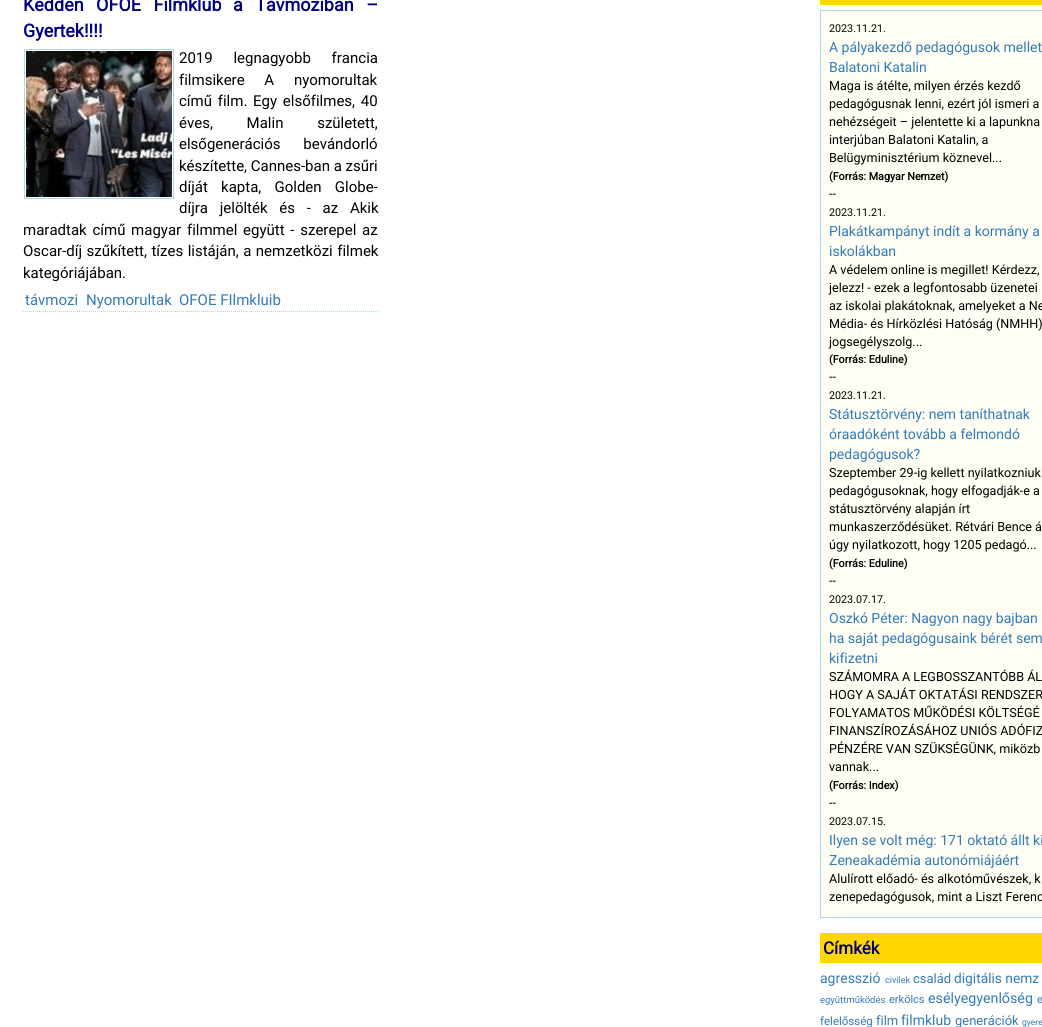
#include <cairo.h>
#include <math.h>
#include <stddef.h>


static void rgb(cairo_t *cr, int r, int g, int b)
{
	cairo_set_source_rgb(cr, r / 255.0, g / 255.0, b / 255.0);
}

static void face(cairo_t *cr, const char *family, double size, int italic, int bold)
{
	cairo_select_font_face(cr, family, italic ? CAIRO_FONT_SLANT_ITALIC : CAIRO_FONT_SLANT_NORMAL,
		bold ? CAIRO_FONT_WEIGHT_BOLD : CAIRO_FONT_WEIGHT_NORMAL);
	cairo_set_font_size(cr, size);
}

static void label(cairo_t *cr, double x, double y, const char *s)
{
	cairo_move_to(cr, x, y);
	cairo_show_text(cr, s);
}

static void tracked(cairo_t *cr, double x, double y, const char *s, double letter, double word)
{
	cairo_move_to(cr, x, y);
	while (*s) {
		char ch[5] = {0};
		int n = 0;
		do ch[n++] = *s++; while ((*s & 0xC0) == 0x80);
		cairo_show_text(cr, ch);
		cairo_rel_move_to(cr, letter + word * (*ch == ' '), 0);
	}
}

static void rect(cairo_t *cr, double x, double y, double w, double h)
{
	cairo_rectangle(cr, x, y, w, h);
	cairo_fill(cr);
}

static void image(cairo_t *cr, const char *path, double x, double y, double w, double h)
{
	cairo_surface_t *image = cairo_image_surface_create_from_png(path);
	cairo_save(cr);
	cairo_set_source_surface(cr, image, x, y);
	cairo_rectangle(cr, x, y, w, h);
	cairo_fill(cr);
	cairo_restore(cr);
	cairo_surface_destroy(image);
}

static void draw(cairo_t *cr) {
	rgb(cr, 255, 255, 255);
	cairo_paint(cr);
	cairo_new_path(cr);
	cairo_move_to(cr, 23, 311.5);
	cairo_line_to(cr, 378, 311.5);
	rgb(cr, 173, 216, 230);
	cairo_set_line_width(cr, 1);
	cairo_set_dash(cr, (double[]){1, 1}, 2, 0);
	cairo_stroke(cr);
	face(cr, "Roboto", 18, 0, 1);
	rgb(cr, 0, 0, 128);
	tracked(cr, 23, 11, "Kedden OFOE Filmklub", 0, 8);
	tracked(cr, 233, 11, "a Távmoziban –", 0, 8);
	label(cr, 23, 37, "Gyertek!!!!");
	cairo_rectangle(cr, 24.5, 49.5, 149, 149);
	rgb(cr, 173, 216, 230);
	cairo_set_dash(cr, NULL, 0, 0);
	cairo_stroke(cr);
	image(cr, "image0.png", 26, 51, 146, 146);
	face(cr, "Roboto", 15, 0, 0);
	rgb(cr, 0, 0, 0);
	tracked(cr, 179, 63, "2019 legnagyobb francia", 0, 17);
	tracked(cr, 179, 85, "filmsikere A nyomorultak", 0, 16);
	tracked(cr, 179, 106, "című film. Egy elsőfilmes, 40", 0, 2);
	tracked(cr, 179, 128, "éves, Malin született,", 0, 30);
	tracked(cr, 179, 149, "elsőgenerációs bevándorló", 0, 19);
	label(cr, 179, 171, "készítette, Cannes-ban a zsűri");
	tracked(cr, 179, 192, "díját kapta, Golden Globe-", 0, 9.5);
	tracked(cr, 179, 213, "díjra jelölték és - az Akik", 0, 8);
	tracked(cr, 23, 235, "maradtak című magyar filmmel együtt - szerepel az", 0, 2);
	tracked(cr, 23, 256, "Oscar-díj szűkített, tízes listáján, a nemzetközi filmek", 0, 0.75);
	label(cr, 23, 278, "kategóriájában.");
	rgb(cr, 51, 122, 183);
	label(cr, 25, 305, "távmozi");
	label(cr, 86, 305, "Nyomorultak");
	label(cr, 179, 305, "OFOE FIlmkluib");
	rgb(cr, 255, 215, 0);
	rect(cr, 820, 0, 222, 5);
	rgb(cr, 255, 254, 244);
	cairo_rectangle(cr, 820.5, 10.5, 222, 907);
	cairo_fill_preserve(cr);
	rgb(cr, 173, 216, 230);
	cairo_stroke(cr);
	face(cr, "Roboto", 10.75, 0, 0);
	rgb(cr, 0, 0, 0);
	label(cr, 829, 32, "2023.11.21.");
	face(cr, "Roboto", 14, 0, 0);
	rgb(cr, 51, 122, 183);
	label(cr, 829, 52, "A pályakezdő pedagógusok mellet");
	label(cr, 829, 72, "Balatoni Katalin");
	face(cr, "Roboto", 12.6, 0, 0);
	rgb(cr, 0, 0, 0);
	label(cr, 829, 90, "Maga is átélte, milyen érzés kezdő");
	label(cr, 829, 108, "pedagógusnak lenni, ezért jól ismeri a");
	label(cr, 829, 126, "nehézségeit – jelentette ki a lapunkna");
	label(cr, 829, 144, "interjúban Balatoni Katalin, a");
	label(cr, 829, 162, "Belügyminisztérium köznevel...");
	face(cr, "Roboto", 10.75, 0, 1);
	label(cr, 829, 180, "(Forrás: Magyar Nemzet)");
	face(cr, "Roboto", 12.6, 0, 0);
	label(cr, 829, 198, "--");
	face(cr, "Roboto", 10.75, 0, 0);
	label(cr, 829, 216, "2023.11.21.");
	face(cr, "Roboto", 14, 0, 0);
	rgb(cr, 51, 122, 183);
	label(cr, 829, 236, "Plakátkampányt indít a kormány a");
	label(cr, 829, 256, "iskolákban");
	face(cr, "Roboto", 12.6, 0, 0);
	rgb(cr, 0, 0, 0);
	label(cr, 829, 274, "A védelem online is megillet! Kérdezz,");
	label(cr, 829, 292, "jelezz! - ezek a legfontosabb üzenetei");
	label(cr, 829, 310, "az iskolai plakátoknak, amelyeket a Ne");
	label(cr, 829, 328, "Média- és Hírközlési Hatóság (NMHH)");
	label(cr, 829, 346, "jogsegélyszolg...");
	face(cr, "Roboto", 10.75, 0, 1);
	label(cr, 829, 363, "(Forrás: Eduline)");
	face(cr, "Roboto", 12.6, 0, 0);
	label(cr, 829, 381, "--");
	face(cr, "Roboto", 10.75, 0, 0);
	label(cr, 829, 399, "2023.11.21.");
	face(cr, "Roboto", 14, 0, 0);
	rgb(cr, 51, 122, 183);
	label(cr, 829, 419, "Státusztörvény: nem taníthatnak");
	label(cr, 829, 439, "óraadóként tovább a felmondó");
	label(cr, 829, 459, "pedagógusok?");
	face(cr, "Roboto", 12.6, 0, 0);
	rgb(cr, 0, 0, 0);
	label(cr, 829, 477, "Szeptember 29-ig kellett nyilatkozniuk");
	label(cr, 829, 495, "pedagógusoknak, hogy elfogadják-e a");
	label(cr, 829, 513, "státusztörvény alapján írt");
	label(cr, 829, 531, "munkaszerződésüket. Rétvári Bence á");
	label(cr, 829, 549, "úgy nyilatkozott, hogy 1205 pedagó...");
	face(cr, "Roboto", 10.75, 0, 1);
	label(cr, 829, 567, "(Forrás: Eduline)");
	face(cr, "Roboto", 12.6, 0, 0);
	label(cr, 829, 585, "--");
	face(cr, "Roboto", 10.75, 0, 0);
	label(cr, 829, 603, "2023.07.17.");
	face(cr, "Roboto", 14, 0, 0);
	rgb(cr, 51, 122, 183);
	label(cr, 829, 623, "Oszkó Péter: Nagyon nagy bajban");
	label(cr, 829, 643, "ha saját pedagógusaink bérét sem");
	label(cr, 829, 663, "kifizetni");
	face(cr, "Roboto", 12.6, 0, 0);
	rgb(cr, 0, 0, 0);
	label(cr, 829, 681, "SZÁMOMRA A LEGBOSSZANTÓBB ÁL");
	label(cr, 829, 699, "HOGY A SAJÁT OKTATÁSI RENDSZER");
	label(cr, 829, 717, "FOLYAMATOS MŰKÖDÉSI KÖLTSÉGÉ");
	label(cr, 829, 735, "FINANSZÍROZÁSÁHOZ UNIÓS ADÓFIZ");
	label(cr, 829, 753, "PÉNZÉRE VAN SZÜKSÉGÜNK, miközb");
	label(cr, 829, 771, "vannak...");
	face(cr, "Roboto", 10.75, 0, 1);
	label(cr, 829, 789, "(Forrás: Index)");
	face(cr, "Roboto", 12.6, 0, 0);
	label(cr, 829, 807, "--");
	face(cr, "Roboto", 10.75, 0, 0);
	label(cr, 829, 825, "2023.07.15.");
	face(cr, "Roboto", 14, 0, 0);
	rgb(cr, 51, 122, 183);
	label(cr, 829, 845, "Ilyen se volt még: 171 oktató állt ki");
	label(cr, 829, 865, "Zeneakadémia autonómiájáért");
	face(cr, "Roboto", 12.6, 0, 0);
	rgb(cr, 0, 0, 0);
	label(cr, 829, 883, "Alulírott előadó- és alkotóművészek, k");
	label(cr, 829, 901, "zenepedagógusok, mint a Liszt Ferenc");
	rgb(cr, 255, 215, 0);
	rect(cr, 820, 933, 222, 30);
	face(cr, "Roboto", 17, 0, 1);
	rgb(cr, 0, 0, 128);
	label(cr, 823, 954, "Címkék");
	face(cr, "Roboto", 14, 0, 0);
	rgb(cr, 51, 122, 183);
	label(cr, 820, 983, "agresszió");
	face(cr, "Roboto", 9, 0, 0);
	label(cr, 885, 983, "civilek");
	face(cr, "Roboto", 13, 0, 0);
	label(cr, 913, 983, "család");
	face(cr, "Roboto", 13.75, 0, 0);
	label(cr, 954, 983, "digitális nemz");
	face(cr, "Roboto", 9.5, 0, 0);
	label(cr, 820, 1003, "együttműködés");
	face(cr, "Roboto", 11, 0, 0);
	label(cr, 889, 1003, "erkölcs");
	face(cr, "Roboto", 14.25, 0, 0);
	label(cr, 928, 1003, "esélyegyenlőség");
	face(cr, "Roboto", 11, 0, 0);
	label(cr, 1037, 1003, "e");
	face(cr, "Roboto", 11.5, 0, 0);
	label(cr, 820, 1025, "felelősség");
	face(cr, "Roboto", 13, 0, 0);
	label(cr, 876, 1025, "film");
	face(cr, "Roboto", 14, 0, 0);
	label(cr, 901, 1025, "filmklub");
	face(cr, "Roboto", 13, 0, 0);
	label(cr, 955, 1025, "generációk");
	face(cr, "Roboto", 8.5, 0, 0);
	label(cr, 1022, 1025, "gyere");
}

int main(void) {
	cairo_surface_t *surface = cairo_image_surface_create(CAIRO_FORMAT_RGB24, 1042, 1027);
	cairo_t *cr = cairo_create(surface);
	cairo_font_options_t *options = cairo_font_options_create();
	cairo_font_options_set_hint_metrics(options, CAIRO_HINT_METRICS_OFF);
	cairo_font_options_set_hint_style(options, CAIRO_HINT_STYLE_NONE);
	cairo_set_font_options(cr, options);
	cairo_set_miter_limit(cr, 4);
	draw(cr);
	cairo_surface_write_to_png(surface, "render.png");
	cairo_font_options_destroy(options);
	cairo_destroy(cr);
	cairo_surface_destroy(surface);
	return 0;
}
